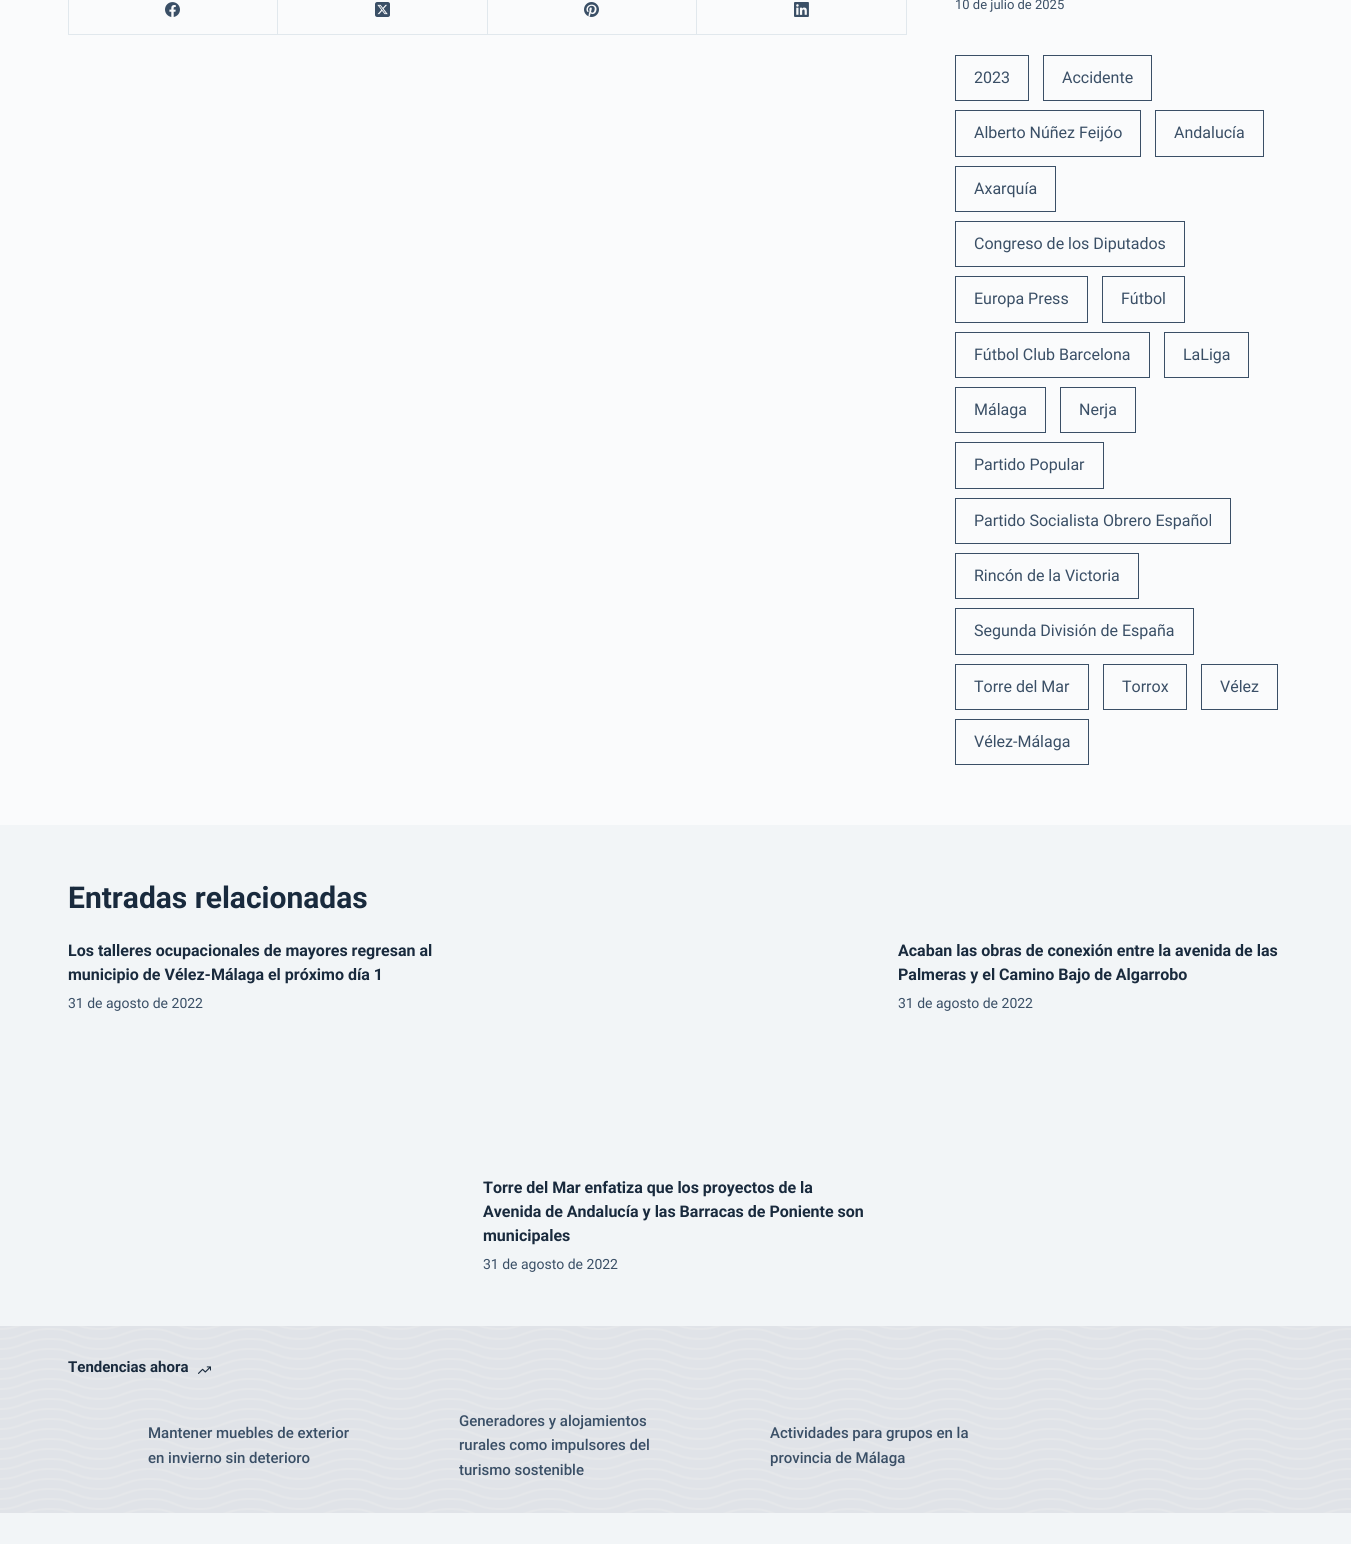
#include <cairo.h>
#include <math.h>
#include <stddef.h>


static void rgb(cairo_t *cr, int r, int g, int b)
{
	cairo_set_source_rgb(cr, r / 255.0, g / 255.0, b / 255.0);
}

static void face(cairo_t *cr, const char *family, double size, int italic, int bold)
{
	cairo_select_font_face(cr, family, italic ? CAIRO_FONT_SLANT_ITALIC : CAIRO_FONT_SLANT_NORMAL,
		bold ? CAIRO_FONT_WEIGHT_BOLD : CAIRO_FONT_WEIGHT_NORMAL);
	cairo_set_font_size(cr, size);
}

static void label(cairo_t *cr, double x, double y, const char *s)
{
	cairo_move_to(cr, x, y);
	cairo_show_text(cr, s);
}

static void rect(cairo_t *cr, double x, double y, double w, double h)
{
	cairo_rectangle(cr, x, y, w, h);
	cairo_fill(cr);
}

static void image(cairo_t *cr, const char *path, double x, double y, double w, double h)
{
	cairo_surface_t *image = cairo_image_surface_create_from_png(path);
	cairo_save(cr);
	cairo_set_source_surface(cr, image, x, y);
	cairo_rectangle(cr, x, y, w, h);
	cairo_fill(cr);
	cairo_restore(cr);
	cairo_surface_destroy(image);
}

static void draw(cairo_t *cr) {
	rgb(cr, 250, 251, 252);
	cairo_paint(cr);
	rgb(cr, 225, 232, 237);
	rect(cr, 68, 0, 1, 35);
	rect(cr, 277, 0, 1, 35);
	rect(cr, 69, 34, 209, 1);
	image(cr, "image0.png", 165, 2, 15, 15);
	rect(cr, 487, 0, 1, 35);
	rect(cr, 278, 34, 210, 1);
	image(cr, "image1.png", 375, 2, 15, 15);
	rect(cr, 696, 0, 1, 35);
	rect(cr, 488, 34, 209, 1);
	image(cr, "image2.png", 584, 2, 15, 15);
	rect(cr, 906, 0, 1, 35);
	rect(cr, 697, 34, 210, 1);
	image(cr, "image3.png", 794, 2, 15, 15);
	face(cr, "Roboto", 13, 0, 0);
	rgb(cr, 58, 79, 102);
	label(cr, 955, 9, "10 de julio de 2025");
	cairo_rectangle(cr, 955.5, 55.5, 73, 45);
	cairo_set_line_width(cr, 1);
	cairo_stroke(cr);
	face(cr, "Roboto", 16, 0, 0);
	label(cr, 974, 83, "2023");
	cairo_rectangle(cr, 1043.5, 55.5, 108, 45);
	cairo_stroke(cr);
	label(cr, 1062, 83, "Accidente");
	cairo_rectangle(cr, 955.5, 110.5, 185, 46);
	cairo_stroke(cr);
	label(cr, 974, 138, "Alberto Núñez Feijóo");
	cairo_rectangle(cr, 1155.5, 110.5, 108, 46);
	cairo_stroke(cr);
	label(cr, 1174, 138, "Andalucía");
	cairo_rectangle(cr, 955.5, 166.5, 100, 45);
	cairo_stroke(cr);
	label(cr, 974, 194, "Axarquía");
	cairo_rectangle(cr, 955.5, 221.5, 229, 45);
	cairo_stroke(cr);
	label(cr, 974, 249, "Congreso de los Diputados");
	cairo_rectangle(cr, 955.5, 276.5, 132, 46);
	cairo_stroke(cr);
	label(cr, 974, 304, "Europa Press");
	cairo_rectangle(cr, 1102.5, 276.5, 82, 46);
	cairo_stroke(cr);
	label(cr, 1121, 304, "Fútbol");
	cairo_rectangle(cr, 955.5, 332.5, 194, 45);
	cairo_stroke(cr);
	label(cr, 974, 360, "Fútbol Club Barcelona");
	cairo_rectangle(cr, 1164.5, 332.5, 84, 45);
	cairo_stroke(cr);
	label(cr, 1183, 360, "LaLiga");
	cairo_rectangle(cr, 955.5, 387.5, 90, 45);
	cairo_stroke(cr);
	label(cr, 974, 415, "Málaga");
	cairo_rectangle(cr, 1060.5, 387.5, 75, 45);
	cairo_stroke(cr);
	label(cr, 1079, 415, "Nerja");
	cairo_rectangle(cr, 955.5, 442.5, 148, 46);
	cairo_stroke(cr);
	label(cr, 974, 470, "Partido Popular");
	cairo_rectangle(cr, 955.5, 498.5, 275, 45);
	cairo_stroke(cr);
	label(cr, 974, 526, "Partido Socialista Obrero Español");
	cairo_rectangle(cr, 955.5, 553.5, 183, 45);
	cairo_stroke(cr);
	label(cr, 974, 581, "Rincón de la Victoria");
	cairo_rectangle(cr, 955.5, 608.5, 238, 46);
	cairo_stroke(cr);
	label(cr, 974, 636, "Segunda División de España");
	cairo_rectangle(cr, 955.5, 664.5, 133, 45);
	cairo_stroke(cr);
	label(cr, 974, 692, "Torre del Mar");
	cairo_rectangle(cr, 1103.5, 664.5, 83, 45);
	cairo_stroke(cr);
	label(cr, 1122, 692, "Torrox");
	cairo_rectangle(cr, 1201.5, 664.5, 76, 45);
	cairo_stroke(cr);
	label(cr, 1220, 692, "Vélez");
	cairo_rectangle(cr, 955.5, 719.5, 133, 45);
	cairo_stroke(cr);
	label(cr, 974, 747, "Vélez-Málaga");
	rgb(cr, 242, 245, 247);
	rect(cr, 0, 825, 1351, 501);
	face(cr, "Roboto", 30, 0, 1);
	rgb(cr, 25, 42, 61);
	label(cr, 68, 908, "Entradas relacionadas");
	face(cr, "Roboto", 16, 0, 1);
	label(cr, 68, 956, "Los talleres ocupacionales de mayores regresan al");
	label(cr, 68, 980, "municipio de Vélez-Málaga el próximo día 1");
	face(cr, "Roboto", 14, 0, 0);
	rgb(cr, 58, 79, 102);
	label(cr, 68, 1008, "31 de agosto de 2022");
	face(cr, "Roboto", 16, 0, 1);
	rgb(cr, 25, 42, 61);
	label(cr, 898, 956, "Acaban las obras de conexión entre la avenida de las");
	label(cr, 898, 980, "Palmeras y el Camino Bajo de Algarrobo");
	face(cr, "Roboto", 14, 0, 0);
	rgb(cr, 58, 79, 102);
	label(cr, 898, 1008, "31 de agosto de 2022");
	face(cr, "Roboto", 16, 0, 1);
	rgb(cr, 25, 42, 61);
	label(cr, 483, 1193, "Torre del Mar enfatiza que los proyectos de la");
	label(cr, 483, 1217, "Avenida de Andalucía y las Barracas de Poniente son");
	label(cr, 483, 1241, "municipales");
	face(cr, "Roboto", 14, 0, 0);
	rgb(cr, 58, 79, 102);
	label(cr, 483, 1269, "31 de agosto de 2022");
	rgb(cr, 224, 227, 232);
	rect(cr, 0, 1326, 1351, 187);
	image(cr, "image4.png", 0, 1326, 1351, 187);
	face(cr, "Roboto", 15, 0, 1);
	rgb(cr, 25, 42, 61);
	label(cr, 68, 1372, "Tendencias ahora");
	image(cr, "image5.png", 198, 1366, 13, 8);
	face(cr, "Roboto Medium", 15, 0, 0);
	rgb(cr, 58, 79, 102);
	label(cr, 148, 1438, "Mantener muebles de exterior");
	label(cr, 148, 1463, "en invierno sin deterioro");
	label(cr, 459, 1426, "Generadores y alojamientos");
	label(cr, 459, 1450, "rurales como impulsores del");
	label(cr, 459, 1475, "turismo sostenible");
	label(cr, 770, 1438, "Actividades para grupos en la");
	label(cr, 770, 1463, "provincia de Málaga");
	rgb(cr, 242, 245, 247);
	rect(cr, 0, 1513, 1351, 31);
}

int main(void) {
	cairo_surface_t *surface = cairo_image_surface_create(CAIRO_FORMAT_RGB24, 1351, 1544);
	cairo_t *cr = cairo_create(surface);
	cairo_font_options_t *options = cairo_font_options_create();
	cairo_font_options_set_hint_metrics(options, CAIRO_HINT_METRICS_OFF);
	cairo_font_options_set_hint_style(options, CAIRO_HINT_STYLE_NONE);
	cairo_set_font_options(cr, options);
	cairo_set_miter_limit(cr, 4);
	draw(cr);
	cairo_surface_write_to_png(surface, "render.png");
	cairo_font_options_destroy(options);
	cairo_destroy(cr);
	cairo_surface_destroy(surface);
	return 0;
}
